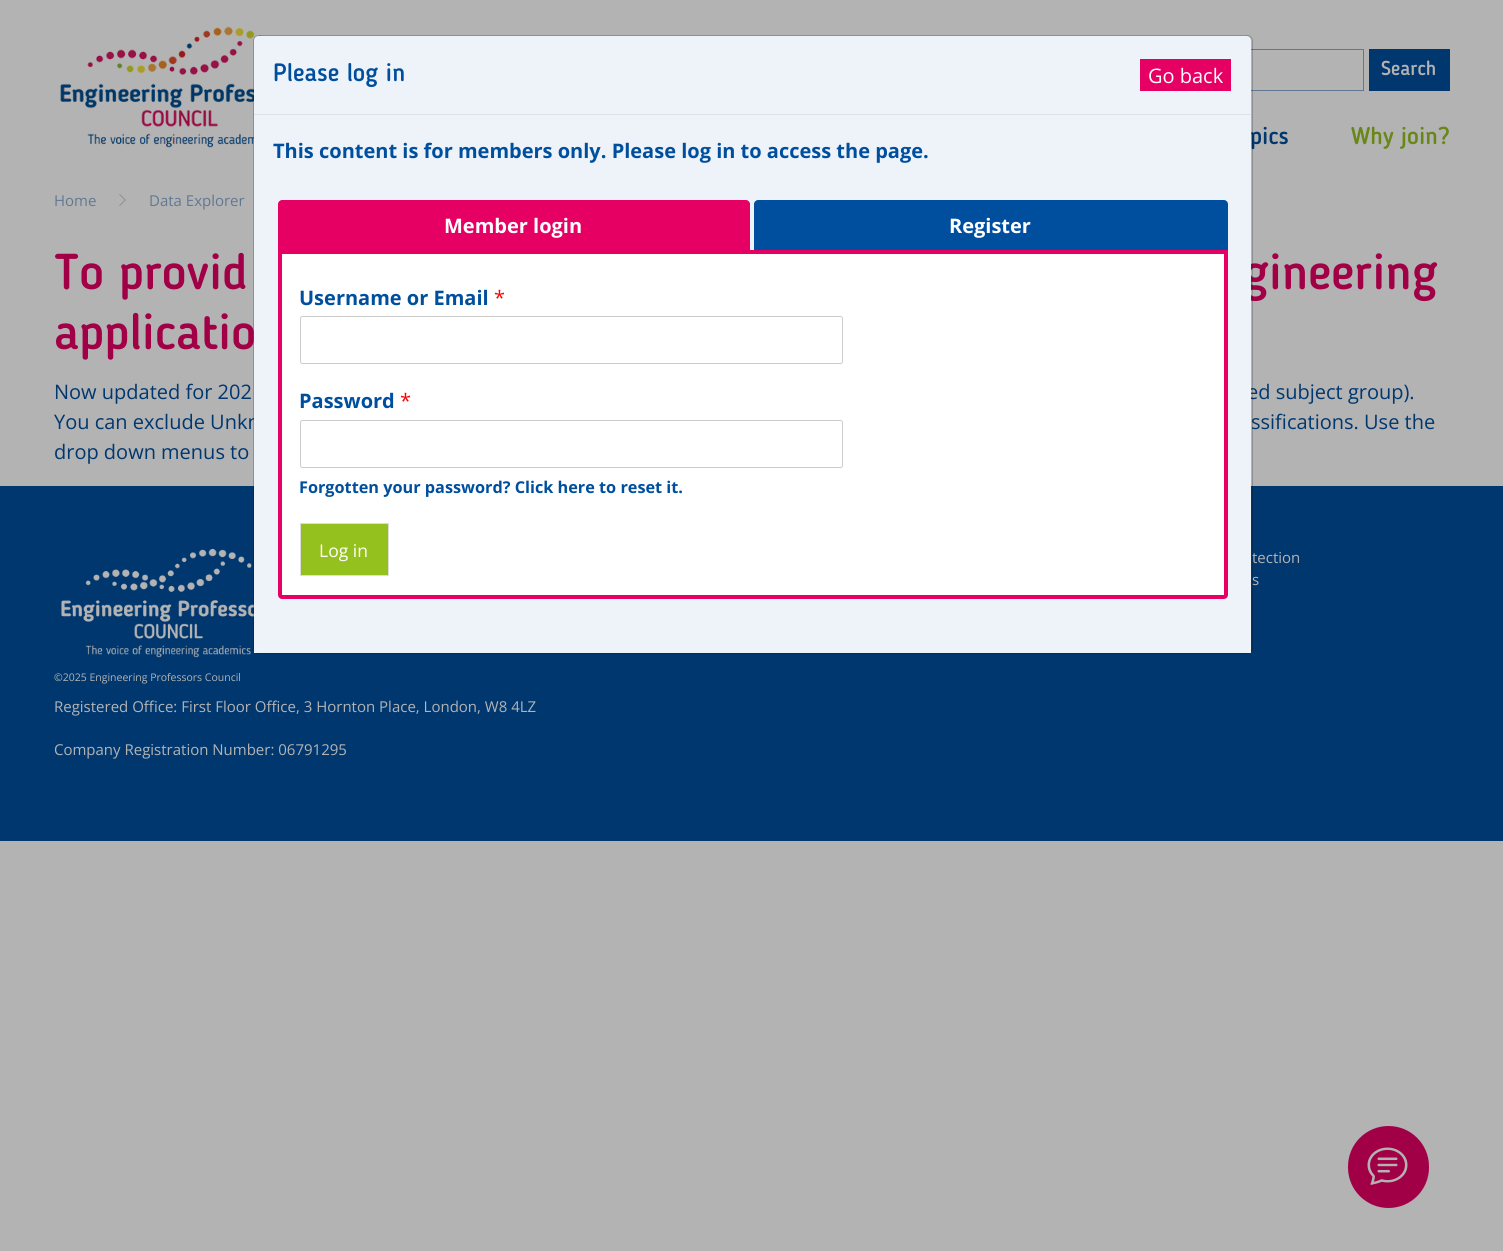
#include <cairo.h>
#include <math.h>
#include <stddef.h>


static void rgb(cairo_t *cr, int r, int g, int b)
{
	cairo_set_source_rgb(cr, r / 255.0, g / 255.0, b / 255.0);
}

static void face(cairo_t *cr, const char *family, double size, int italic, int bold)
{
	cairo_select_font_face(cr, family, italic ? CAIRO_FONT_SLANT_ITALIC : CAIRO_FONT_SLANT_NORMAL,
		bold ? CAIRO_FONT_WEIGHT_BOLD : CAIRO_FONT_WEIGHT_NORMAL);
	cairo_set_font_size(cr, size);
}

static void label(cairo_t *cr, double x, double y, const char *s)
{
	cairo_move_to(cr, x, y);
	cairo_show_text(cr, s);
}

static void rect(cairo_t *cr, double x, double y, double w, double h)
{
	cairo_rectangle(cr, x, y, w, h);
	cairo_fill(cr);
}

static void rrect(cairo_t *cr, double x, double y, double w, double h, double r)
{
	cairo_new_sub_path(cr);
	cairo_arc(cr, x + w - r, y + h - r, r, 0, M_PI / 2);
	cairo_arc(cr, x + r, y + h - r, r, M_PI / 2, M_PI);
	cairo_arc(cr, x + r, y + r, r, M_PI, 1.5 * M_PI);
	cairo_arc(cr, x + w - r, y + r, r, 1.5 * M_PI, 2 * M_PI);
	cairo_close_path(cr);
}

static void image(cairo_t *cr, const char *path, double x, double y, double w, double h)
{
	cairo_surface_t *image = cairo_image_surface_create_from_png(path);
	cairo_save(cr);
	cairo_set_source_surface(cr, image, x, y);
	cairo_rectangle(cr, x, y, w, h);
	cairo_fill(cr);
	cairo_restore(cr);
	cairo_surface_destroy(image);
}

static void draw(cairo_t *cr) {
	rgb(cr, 179, 179, 179);
	cairo_paint(cr);
	cairo_rectangle(cr, 1133.5, 49.5, 230, 41);
	rgb(cr, 97, 120, 147);
	cairo_set_line_width(cr, 1);
	cairo_stroke(cr);
	rgb(cr, 0, 55, 111);
	rect(cr, 1369, 49, 81, 42);
	face(cr, "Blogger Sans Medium", 20, 0, 0);
	rgb(cr, 179, 179, 179);
	label(cr, 1381, 75, "Search");
	image(cr, "image0.png", 60, 26, 202, 122);
	face(cr, "Blogger Sans Medium", 24, 0, 0);
	rgb(cr, 0, 55, 111);
	label(cr, 1250, 144, "pics");
	rgb(cr, 104, 135, 22);
	label(cr, 1351, 144, "Why join?");
	face(cr, "Blogger Sans Medium", 50, 0, 0);
	rgb(cr, 161, 0, 70);
	label(cr, 1243, 289, "gineering");
	label(cr, 54, 349, "applicatio");
	face(cr, "Open Sans", 20, 0, 0);
	rgb(cr, 0, 55, 111);
	label(cr, 1247, 399, "ed subject group).");
	label(cr, 54, 429, "You can exclude Unkn");
	label(cr, 1251, 429, "ssifications. Use the");
	rect(cr, 0, 486, 1503, 355);
	face(cr, "Open Sans", 15, 0, 0);
	rgb(cr, 179, 179, 179);
	label(cr, 1252, 563, "tection");
	label(cr, 1252, 585, "s");
	image(cr, "image2.png", 61, 548, 193, 110);
	rrect(cr, 253.5, 35.5, 999, 618, 5.5);
	cairo_set_source_rgba(cr, 0, 0, 0, 0.2);
	cairo_stroke(cr);
	rgb(cr, 238, 243, 249);
	cairo_new_path(cr);
	cairo_move_to(cr, 259, 36);
	cairo_line_to(cr, 1246, 36);
	cairo_curve_to(cr, 1249, 36, 1251, 38, 1251, 41);
	cairo_line_to(cr, 1251, 115);
	cairo_line_to(cr, 254, 115);
	cairo_line_to(cr, 254, 41);
	cairo_curve_to(cr, 254, 38, 256, 36, 259, 36);
	cairo_close_path(cr);
	cairo_fill(cr);
	rgb(cr, 222, 226, 230);
	rect(cr, 254, 114, 997, 1);
	face(cr, "Blogger Sans Medium", 25, 0, 0);
	rgb(cr, 0, 79, 159);
	label(cr, 273, 81, "Please log in");
	rgb(cr, 230, 0, 100);
	rect(cr, 1140, 59, 91, 32);
	face(cr, "Open Sans", 20, 0, 0);
	rgb(cr, 255, 255, 255);
	label(cr, 1148, 83, "Go back");
	rgb(cr, 238, 243, 249);
	rect(cr, 254, 115, 997, 538);
	face(cr, "Open Sans", 20, 0, 1);
	rgb(cr, 0, 79, 159);
	label(cr, 273, 158, "This content is for members only. Please log in to access the page.");
	rgb(cr, 230, 0, 100);
	cairo_new_path(cr);
	cairo_move_to(cr, 282, 200);
	cairo_line_to(cr, 746, 200);
	cairo_curve_to(cr, 748, 200, 750, 202, 750, 204);
	cairo_line_to(cr, 750, 250);
	cairo_line_to(cr, 278, 250);
	cairo_line_to(cr, 278, 204);
	cairo_curve_to(cr, 278, 202, 280, 200, 282, 200);
	cairo_close_path(cr);
	cairo_fill(cr);
	rgb(cr, 255, 255, 255);
	label(cr, 444, 233, "Member login");
	rgb(cr, 0, 79, 159);
	cairo_new_path(cr);
	cairo_move_to(cr, 758, 200);
	cairo_line_to(cr, 1224, 200);
	cairo_curve_to(cr, 1226, 200, 1228, 202, 1228, 204);
	cairo_line_to(cr, 1228, 250);
	cairo_line_to(cr, 754, 250);
	cairo_line_to(cr, 754, 204);
	cairo_curve_to(cr, 754, 202, 756, 200, 758, 200);
	cairo_close_path(cr);
	cairo_fill(cr);
	rgb(cr, 255, 255, 255);
	label(cr, 949, 233, "Register");
	cairo_new_path(cr);
	cairo_move_to(cr, 280, 252);
	cairo_line_to(cr, 1226, 252);
	cairo_line_to(cr, 1226, 595);
	cairo_curve_to(cr, 1226, 596, 1225, 597, 1224, 597);
	cairo_line_to(cr, 282, 597);
	cairo_curve_to(cr, 281, 597, 280, 596, 280, 595);
	cairo_close_path(cr);
	cairo_fill_preserve(cr);
	rgb(cr, 230, 0, 100);
	cairo_set_line_width(cr, 4);
	cairo_stroke(cr);
	rgb(cr, 0, 79, 159);
	label(cr, 299, 305, "Username or Email");
	face(cr, "Open Sans", 20, 0, 0);
	rgb(cr, 255, 0, 0);
	label(cr, 494, 305, "*");
	rrect(cr, 300.5, 316.5, 542, 47, 2);
	rgb(cr, 204, 204, 204);
	cairo_set_line_width(cr, 1);
	cairo_stroke(cr);
	face(cr, "Open Sans", 20, 0, 1);
	rgb(cr, 0, 79, 159);
	label(cr, 299, 408, "Password");
	face(cr, "Open Sans", 20, 0, 0);
	rgb(cr, 255, 0, 0);
	label(cr, 400, 408, "*");
	rrect(cr, 300.5, 420.5, 542, 47, 2);
	rgb(cr, 204, 204, 204);
	cairo_stroke(cr);
	face(cr, "Open Sans", 16.25, 0, 1);
	rgb(cr, 0, 79, 159);
	label(cr, 299, 493, "Forgotten your password? Click here to reset it.");
	rgb(cr, 149, 193, 31);
	cairo_rectangle(cr, 300.5, 523.5, 88, 52);
	cairo_fill_preserve(cr);
	rgb(cr, 221, 221, 221);
	cairo_stroke(cr);
	face(cr, "Open Sans", 17.5, 0, 0);
	rgb(cr, 255, 255, 255);
	label(cr, 319, 557, "Log in");
	face(cr, "Blogger Sans Medium", 50, 0, 0);
	rgb(cr, 161, 0, 70);
	label(cr, 54, 289, "To provid");
	face(cr, "Open Sans", 20, 0, 0);
	rgb(cr, 0, 55, 111);
	label(cr, 54, 399, "Now updated for 202");
	label(cr, 54, 459, "drop down menus to");
	face(cr, "Open Sans", 15, 0, 0);
	rgb(cr, 97, 120, 147);
	label(cr, 54, 206, "Home");
	image(cr, "image1.png", 119, 194, 7, 12);
	label(cr, 149, 206, "Data Explorer");
	face(cr, "Open Sans", 10.5, 0, 0);
	rgb(cr, 179, 179, 179);
	label(cr, 54, 681, "©2025 Engineering Professors Council");
	face(cr, "Open Sans", 15, 0, 0);
	label(cr, 54, 712, "Registered Office: First Floor Office, 3 Hornton Place, London, W8 4LZ");
	label(cr, 54, 755, "Company Registration Number: 06791295");
	rgb(cr, 161, 0, 70);
	rrect(cr, 1348, 1126, 81, 82, 40.5);
	cairo_fill(cr);
	image(cr, "image3.png", 1367, 1147, 41, 38);
}

int main(void) {
	cairo_surface_t *surface = cairo_image_surface_create(CAIRO_FORMAT_RGB24, 1503, 1251);
	cairo_t *cr = cairo_create(surface);
	cairo_font_options_t *options = cairo_font_options_create();
	cairo_font_options_set_hint_metrics(options, CAIRO_HINT_METRICS_OFF);
	cairo_font_options_set_hint_style(options, CAIRO_HINT_STYLE_NONE);
	cairo_set_font_options(cr, options);
	cairo_set_miter_limit(cr, 4);
	draw(cr);
	cairo_surface_write_to_png(surface, "render.png");
	cairo_font_options_destroy(options);
	cairo_destroy(cr);
	cairo_surface_destroy(surface);
	return 0;
}
